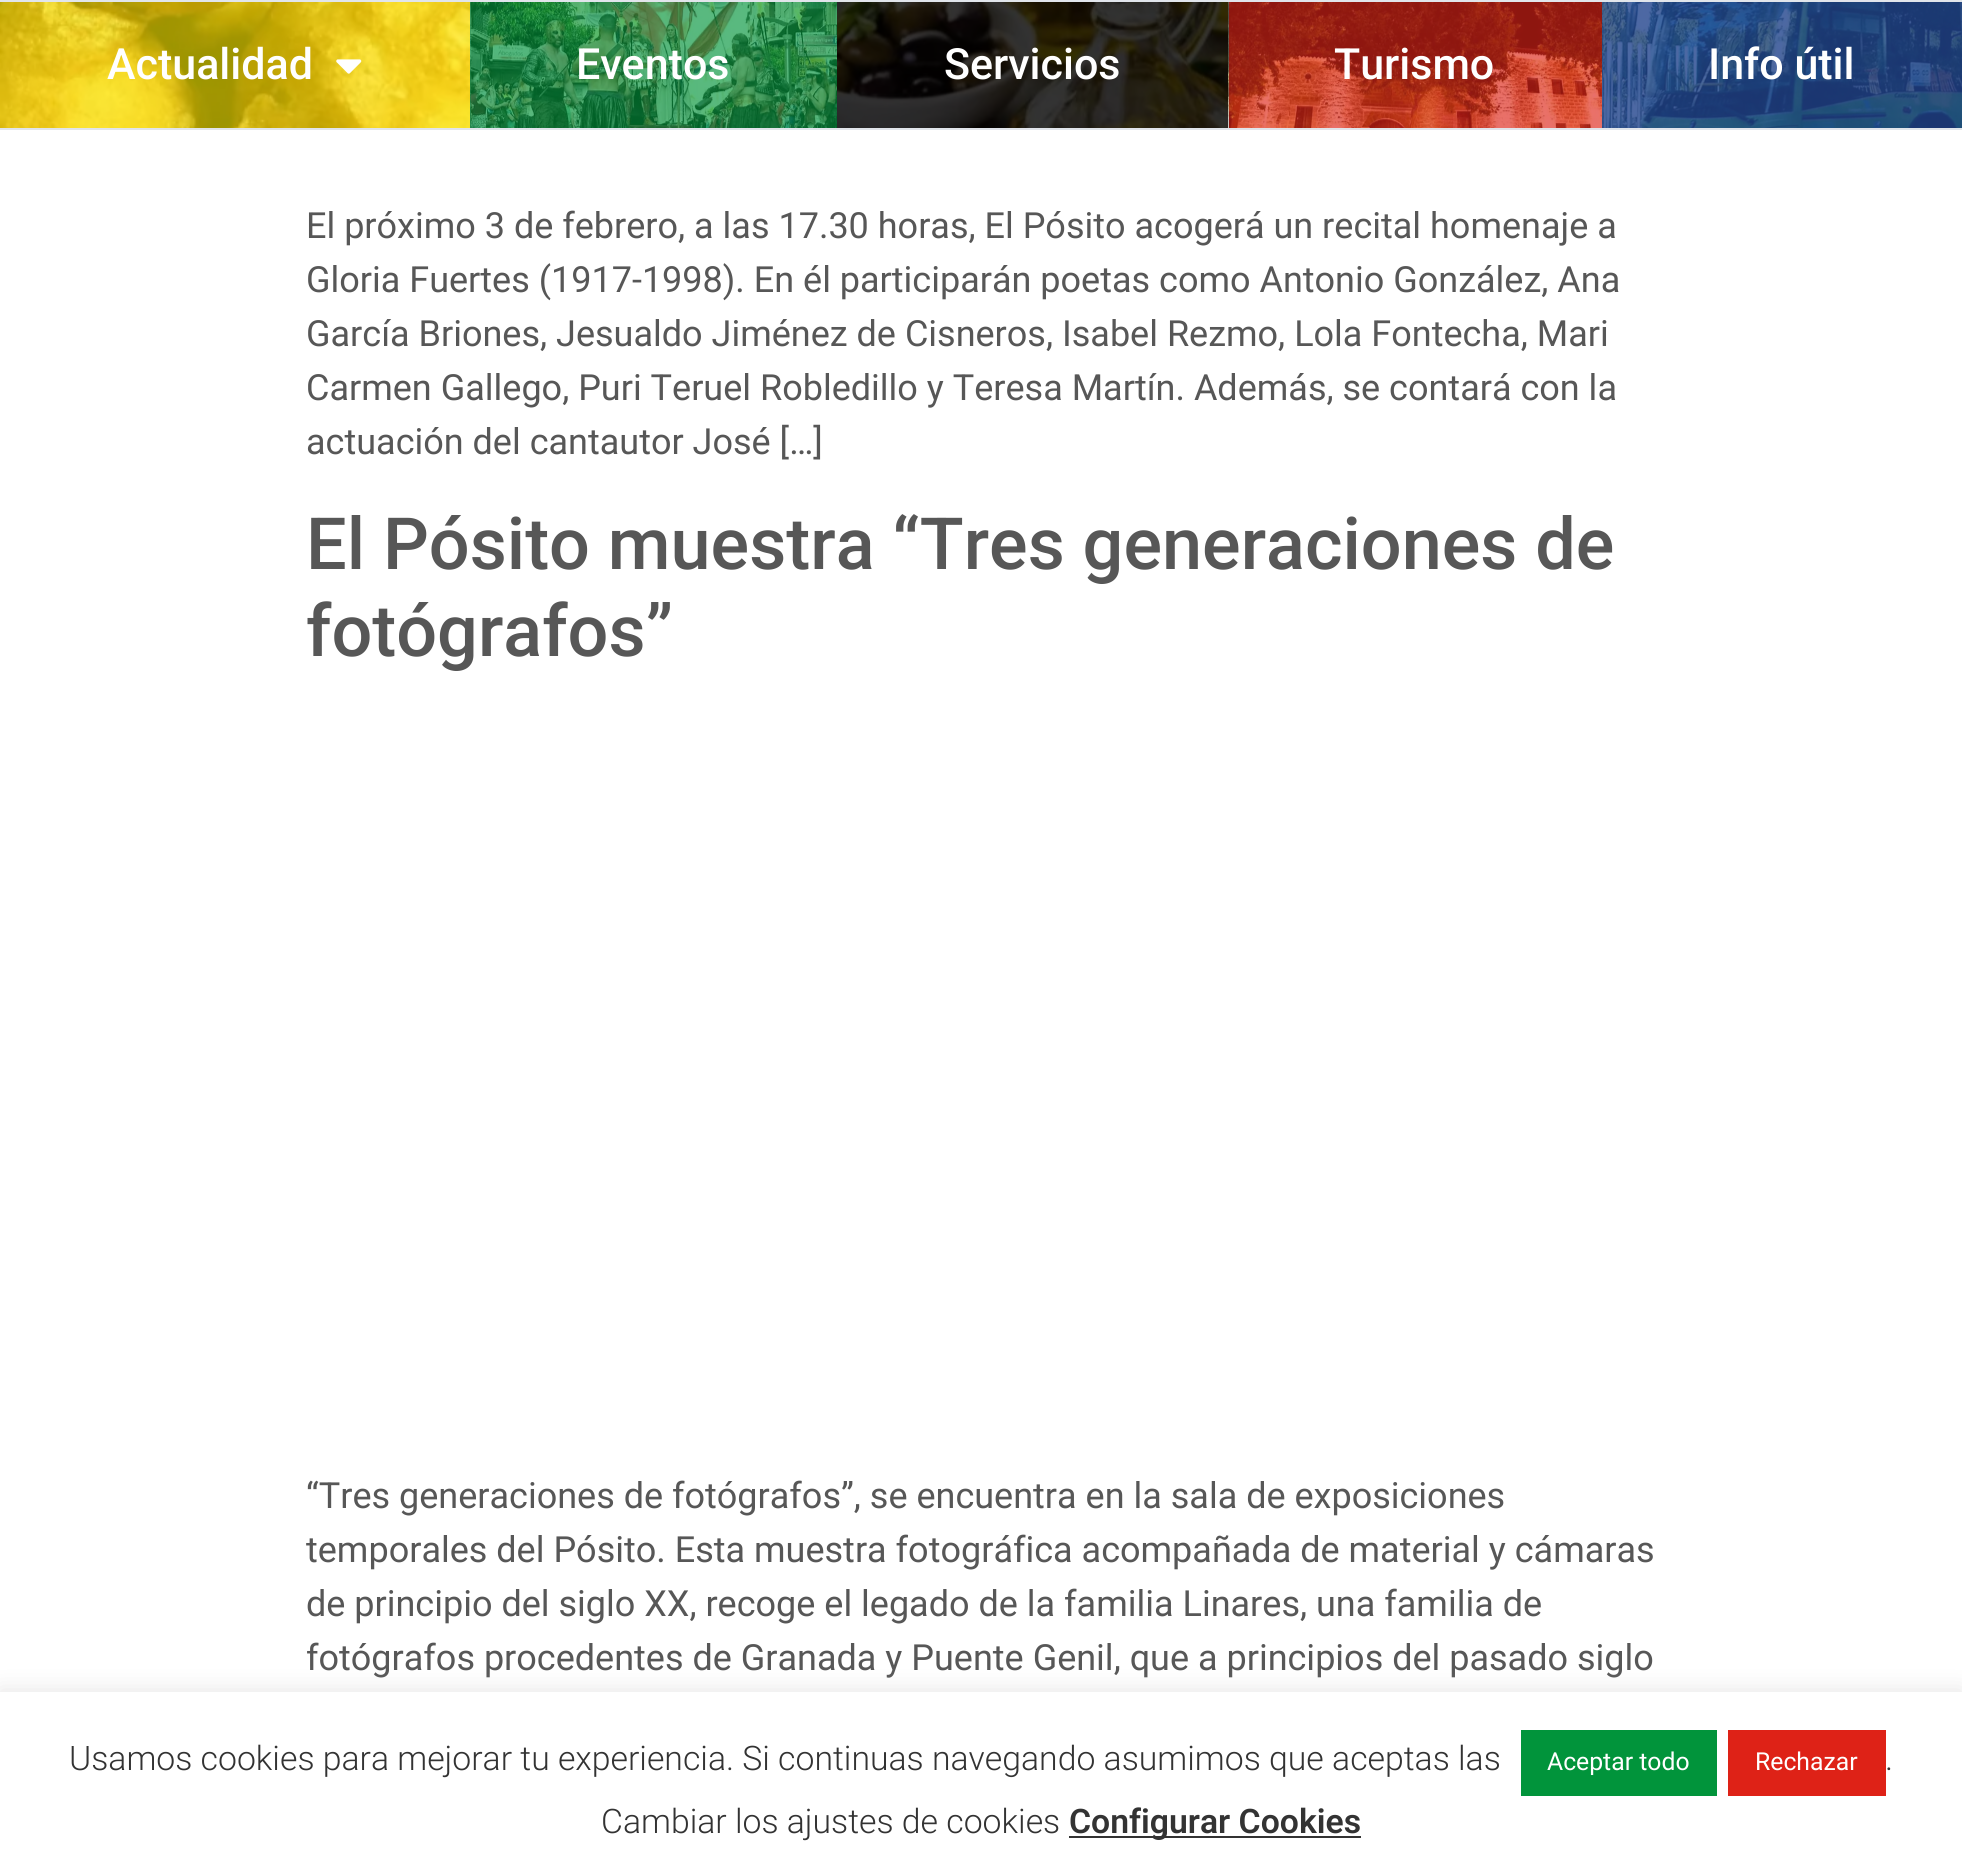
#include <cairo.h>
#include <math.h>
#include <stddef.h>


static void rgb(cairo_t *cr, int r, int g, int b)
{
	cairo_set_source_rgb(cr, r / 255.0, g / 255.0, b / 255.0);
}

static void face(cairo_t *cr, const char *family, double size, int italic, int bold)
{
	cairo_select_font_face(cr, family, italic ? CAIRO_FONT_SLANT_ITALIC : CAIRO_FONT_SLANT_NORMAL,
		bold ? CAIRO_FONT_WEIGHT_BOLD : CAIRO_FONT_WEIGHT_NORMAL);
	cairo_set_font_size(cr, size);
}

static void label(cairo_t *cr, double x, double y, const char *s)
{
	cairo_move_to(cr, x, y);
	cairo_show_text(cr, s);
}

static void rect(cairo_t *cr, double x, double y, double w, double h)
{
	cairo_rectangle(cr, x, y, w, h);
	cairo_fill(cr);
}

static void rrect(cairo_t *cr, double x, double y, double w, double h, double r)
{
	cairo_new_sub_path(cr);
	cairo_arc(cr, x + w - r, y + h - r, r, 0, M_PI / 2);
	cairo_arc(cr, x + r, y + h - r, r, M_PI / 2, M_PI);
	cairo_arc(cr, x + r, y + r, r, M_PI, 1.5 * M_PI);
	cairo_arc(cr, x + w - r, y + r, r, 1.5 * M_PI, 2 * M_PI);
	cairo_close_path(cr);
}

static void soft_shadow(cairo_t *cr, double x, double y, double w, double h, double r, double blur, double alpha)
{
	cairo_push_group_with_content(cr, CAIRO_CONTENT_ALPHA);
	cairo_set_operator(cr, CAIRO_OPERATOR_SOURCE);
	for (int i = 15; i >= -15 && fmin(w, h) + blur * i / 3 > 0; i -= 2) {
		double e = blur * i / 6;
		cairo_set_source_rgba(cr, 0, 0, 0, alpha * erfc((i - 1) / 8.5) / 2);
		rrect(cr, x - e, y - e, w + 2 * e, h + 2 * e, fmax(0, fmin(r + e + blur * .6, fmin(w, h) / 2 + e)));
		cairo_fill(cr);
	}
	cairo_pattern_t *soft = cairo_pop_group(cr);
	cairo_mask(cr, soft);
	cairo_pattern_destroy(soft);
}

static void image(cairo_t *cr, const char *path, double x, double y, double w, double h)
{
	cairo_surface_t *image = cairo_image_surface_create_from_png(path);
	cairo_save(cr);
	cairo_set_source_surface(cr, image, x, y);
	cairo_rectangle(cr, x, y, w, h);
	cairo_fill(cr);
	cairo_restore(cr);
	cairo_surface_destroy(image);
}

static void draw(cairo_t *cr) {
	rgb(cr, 255, 255, 255);
	cairo_paint(cr);
	rgb(cr, 225, 229, 235);
	rect(cr, 0, 0, 1962, 2);
	rect(cr, 0, 128, 1962, 2);
	image(cr, "image0.png", 0, 2, 471, 126);
	face(cr, "Roboto Medium", 43, 0, 0);
	rgb(cr, 255, 255, 255);
	label(cr, 107, 79, "Actualidad");
	image(cr, "image1.png", 336, 59, 26, 15);
	image(cr, "image2.png", 470, 2, 367, 126);
	cairo_set_source_rgba(cr, 0.004, 0.58, 0.231, 0.65);
	rect(cr, 470, 2, 367, 126);
	rgb(cr, 255, 255, 255);
	label(cr, 576, 79, "Eventos");
	image(cr, "image3.png", 837, 2, 392, 126);
	label(cr, 944, 79, "Servicios");
	image(cr, "image4.png", 1228, 2, 374, 126);
	label(cr, 1334, 79, "Turismo");
	image(cr, "image5.png", 1602, 2, 360, 126);
	label(cr, 1708, 79, "Info útil");
	face(cr, "Roboto", 36, 0, 0);
	rgb(cr, 87, 87, 87);
	label(cr, 306, 238, "El próximo 3 de febrero, a las 17.30 horas, El Pósito acogerá un recital homenaje a");
	label(cr, 306, 292, "Gloria Fuertes (1917-1998). En él participarán poetas como Antonio González, Ana");
	label(cr, 306, 346, "García Briones, Jesualdo Jiménez de Cisneros, Isabel Rezmo, Lola Fontecha, Mari");
	label(cr, 306, 400, "Carmen Gallego, Puri Teruel Robledillo y Teresa Martín. Además, se contará con la");
	label(cr, 306, 454, "actuación del cantautor José […]");
	face(cr, "Roboto Medium", 72, 0, 0);
	label(cr, 306, 569, "El Pósito muestra “Tres generaciones de");
	label(cr, 306, 656, "fotógrafos”");
	face(cr, "Roboto", 36, 0, 0);
	label(cr, 306, 1508, "“Tres generaciones de fotógrafos”, se encuentra en la sala de exposiciones");
	label(cr, 306, 1562, "temporales del Pósito. Esta muestra fotográfica acompañada de material y cámaras");
	label(cr, 306, 1616, "de principio del siglo XX, recoge el legado de la familia Linares, una familia de");
	label(cr, 306, 1670, "fotógrafos procedentes de Granada y Puente Genil, que a principios del pasado siglo");
	rgb(cr, 172, 171, 171);
	soft_shadow(cr, 0, 1690, 1962, 182, 0, 11, 0.3);
	rgb(cr, 255, 255, 255);
	rect(cr, 0, 1692, 1962, 181);
	face(cr, "Roboto Light", 33.75, 0, 0);
	rgb(cr, 51, 51, 51);
	label(cr, 69, 1770, "Usamos cookies para mejorar tu experiencia. Si continuas navegando asumimos que aceptas las");
	rgb(cr, 1, 148, 59);
	rect(cr, 1521, 1730, 196, 66);
	face(cr, "Roboto", 24.75, 0, 0);
	rgb(cr, 255, 255, 255);
	label(cr, 1547, 1770, "Aceptar todo");
	rgb(cr, 222, 34, 23);
	rect(cr, 1728, 1730, 158, 66);
	rgb(cr, 255, 255, 255);
	label(cr, 1755, 1770, "Rechazar");
	face(cr, "Roboto Light", 33.75, 0, 0);
	rgb(cr, 51, 51, 51);
	label(cr, 1885, 1770, ".");
	label(cr, 601, 1833, "Cambiar los ajustes de cookies");
	rect(cr, 1069, 1836, 292, 2);
	face(cr, "Roboto SemiBold", 33.75, 0, 0);
	label(cr, 1069, 1833, "Configurar Cookies");
}

int main(void) {
	cairo_surface_t *surface = cairo_image_surface_create(CAIRO_FORMAT_RGB24, 1962, 1873);
	cairo_t *cr = cairo_create(surface);
	cairo_font_options_t *options = cairo_font_options_create();
	cairo_font_options_set_hint_metrics(options, CAIRO_HINT_METRICS_OFF);
	cairo_font_options_set_hint_style(options, CAIRO_HINT_STYLE_NONE);
	cairo_set_font_options(cr, options);
	cairo_set_miter_limit(cr, 4);
	draw(cr);
	cairo_surface_write_to_png(surface, "render.png");
	cairo_font_options_destroy(options);
	cairo_destroy(cr);
	cairo_surface_destroy(surface);
	return 0;
}
